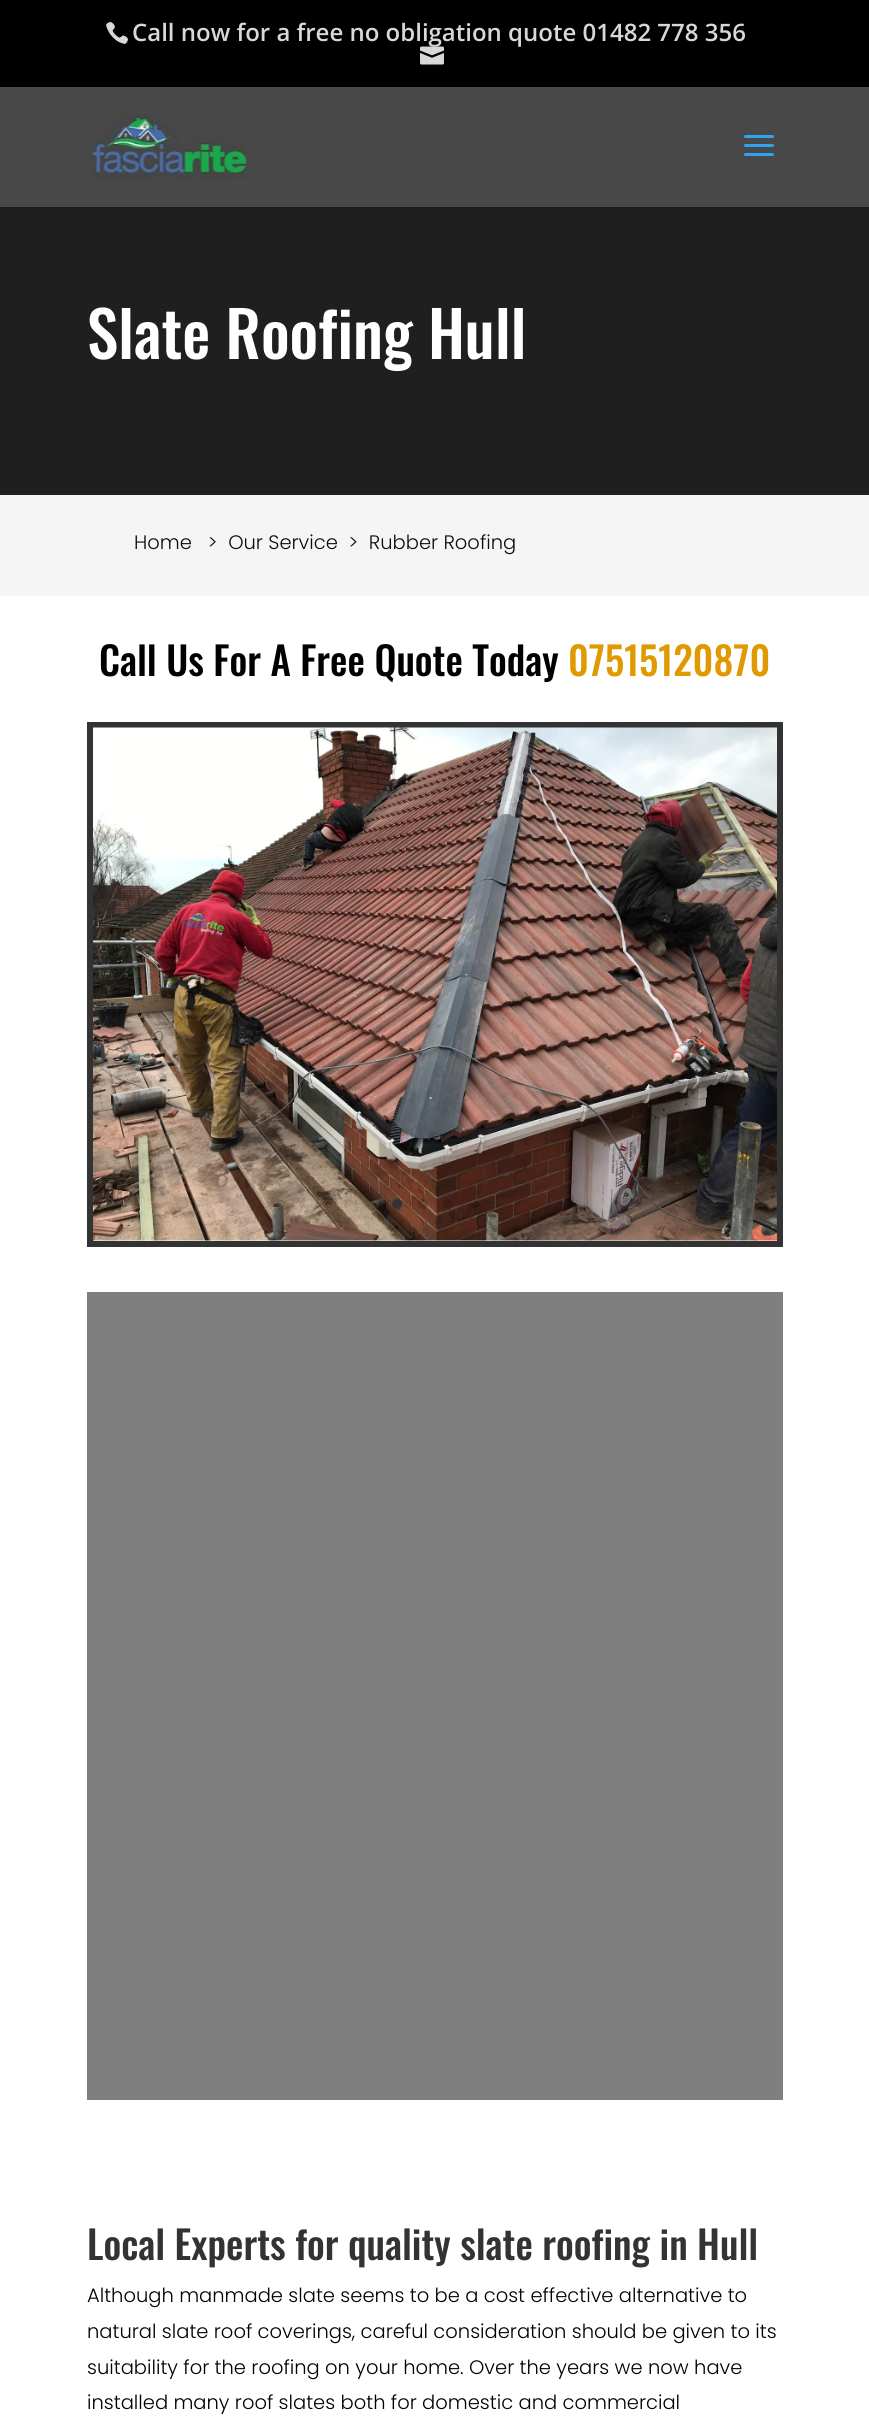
#include <cairo.h>
#include <math.h>
#include <stddef.h>


static void rgb(cairo_t *cr, int r, int g, int b)
{
	cairo_set_source_rgb(cr, r / 255.0, g / 255.0, b / 255.0);
}

static void face(cairo_t *cr, const char *family, double size, int italic, int bold)
{
	cairo_select_font_face(cr, family, italic ? CAIRO_FONT_SLANT_ITALIC : CAIRO_FONT_SLANT_NORMAL,
		bold ? CAIRO_FONT_WEIGHT_BOLD : CAIRO_FONT_WEIGHT_NORMAL);
	cairo_set_font_size(cr, size);
}

static void label(cairo_t *cr, double x, double y, const char *s)
{
	cairo_move_to(cr, x, y);
	cairo_show_text(cr, s);
}

static void rect(cairo_t *cr, double x, double y, double w, double h)
{
	cairo_rectangle(cr, x, y, w, h);
	cairo_fill(cr);
}

static void rrect(cairo_t *cr, double x, double y, double w, double h, double r)
{
	cairo_new_sub_path(cr);
	cairo_arc(cr, x + w - r, y + h - r, r, 0, M_PI / 2);
	cairo_arc(cr, x + r, y + h - r, r, M_PI / 2, M_PI);
	cairo_arc(cr, x + r, y + r, r, M_PI, 1.5 * M_PI);
	cairo_arc(cr, x + w - r, y + r, r, 1.5 * M_PI, 2 * M_PI);
	cairo_close_path(cr);
}

static void image(cairo_t *cr, const char *path, double x, double y, double w, double h)
{
	cairo_surface_t *image = cairo_image_surface_create_from_png(path);
	cairo_save(cr);
	cairo_set_source_surface(cr, image, x, y);
	cairo_rectangle(cr, x, y, w, h);
	cairo_fill(cr);
	cairo_restore(cr);
	cairo_surface_destroy(image);
}

static void draw(cairo_t *cr) {
	rgb(cr, 255, 255, 255);
	cairo_paint(cr);
	rgb(cr, 0, 0, 0);
	rect(cr, 0, 0, 869, 87);
	image(cr, "image0.png", 106, 22, 22, 22);
	face(cr, "Open Sans SemiBold", 24, 0, 0);
	rgb(cr, 216, 216, 216);
	label(cr, 132, 41, "Call now for a free no obligation quote 01482 778 356");
	image(cr, "image1.png", 420, 46, 24, 19);
	rgb(cr, 28, 28, 28);
	rect(cr, 0, 207, 869, 2);
	rgb(cr, 72, 72, 72);
	rect(cr, 0, 87, 869, 120);
	image(cr, "image2.png", 92, 114, 155, 66);
	image(cr, "image3.png", 744, 135, 30, 21);
	rgb(cr, 31, 31, 31);
	rect(cr, 0, 209, 869, 286);
	face(cr, "Oswald Medium", 63, 0, 0);
	rgb(cr, 255, 255, 255);
	label(cr, 87, 359, "Slate Roofing Hull");
	rgb(cr, 245, 245, 245);
	rect(cr, 0, 495, 869, 101);
	face(cr, "Poppins Light", 19.5, 0, 0);
	rgb(cr, 12, 12, 12);
	label(cr, 134, 549, "Home   >  Our Service  >  Rubber Roofing");
	face(cr, "Oswald Medium", 39, 0, 0);
	rgb(cr, 0, 0, 0);
	label(cr, 99, 676, "Call Us For A Free Quote Today");
	rgb(cr, 224, 153, 0);
	label(cr, 568, 676, "07515120870");
	cairo_rectangle(cr, 90, 725, 690, 519);
	rgb(cr, 51, 51, 51);
	cairo_set_line_width(cr, 6);
	cairo_stroke(cr);
	image(cr, "image4.png", 93, 727, 684, 514);
	cairo_arc(cr, 397, 1204, 5, 0, 2 * M_PI);
	cairo_fill(cr);
	cairo_set_source_rgba(cr, 0, 0, 0, 0.15);
	rrect(cr, 417, 1199, 11, 10, 5);
	cairo_fill(cr);
	cairo_arc(cr, 448, 1204, 5, 0, 2 * M_PI);
	cairo_fill(cr);
	rrect(cr, 468, 1199, 11, 10, 5);
	cairo_fill(cr);
	rgb(cr, 127, 127, 127);
	rect(cr, 87, 1292, 696, 808);
	rgb(cr, 51, 51, 51);
	label(cr, 87, 2260, "Local Experts for quality slate roofing in Hull");
	face(cr, "Poppins Light", 19.5, 0, 0);
	rgb(cr, 0, 0, 0);
	label(cr, 87, 2302, "Although manmade slate seems to be a cost effective alternative to");
	label(cr, 87, 2338, "natural slate roof coverings, careful consideration should be given to its");
	label(cr, 87, 2374, "suitability for the roofing on your home. Over the years we now have");
	label(cr, 87, 2409, "installed many roof slates both for domestic and commercial");
}

int main(void) {
	cairo_surface_t *surface = cairo_image_surface_create(CAIRO_FORMAT_RGB24, 869, 2435);
	cairo_t *cr = cairo_create(surface);
	cairo_font_options_t *options = cairo_font_options_create();
	cairo_font_options_set_hint_metrics(options, CAIRO_HINT_METRICS_OFF);
	cairo_font_options_set_hint_style(options, CAIRO_HINT_STYLE_NONE);
	cairo_set_font_options(cr, options);
	cairo_set_miter_limit(cr, 4);
	draw(cr);
	cairo_surface_write_to_png(surface, "render.png");
	cairo_font_options_destroy(options);
	cairo_destroy(cr);
	cairo_surface_destroy(surface);
	return 0;
}
